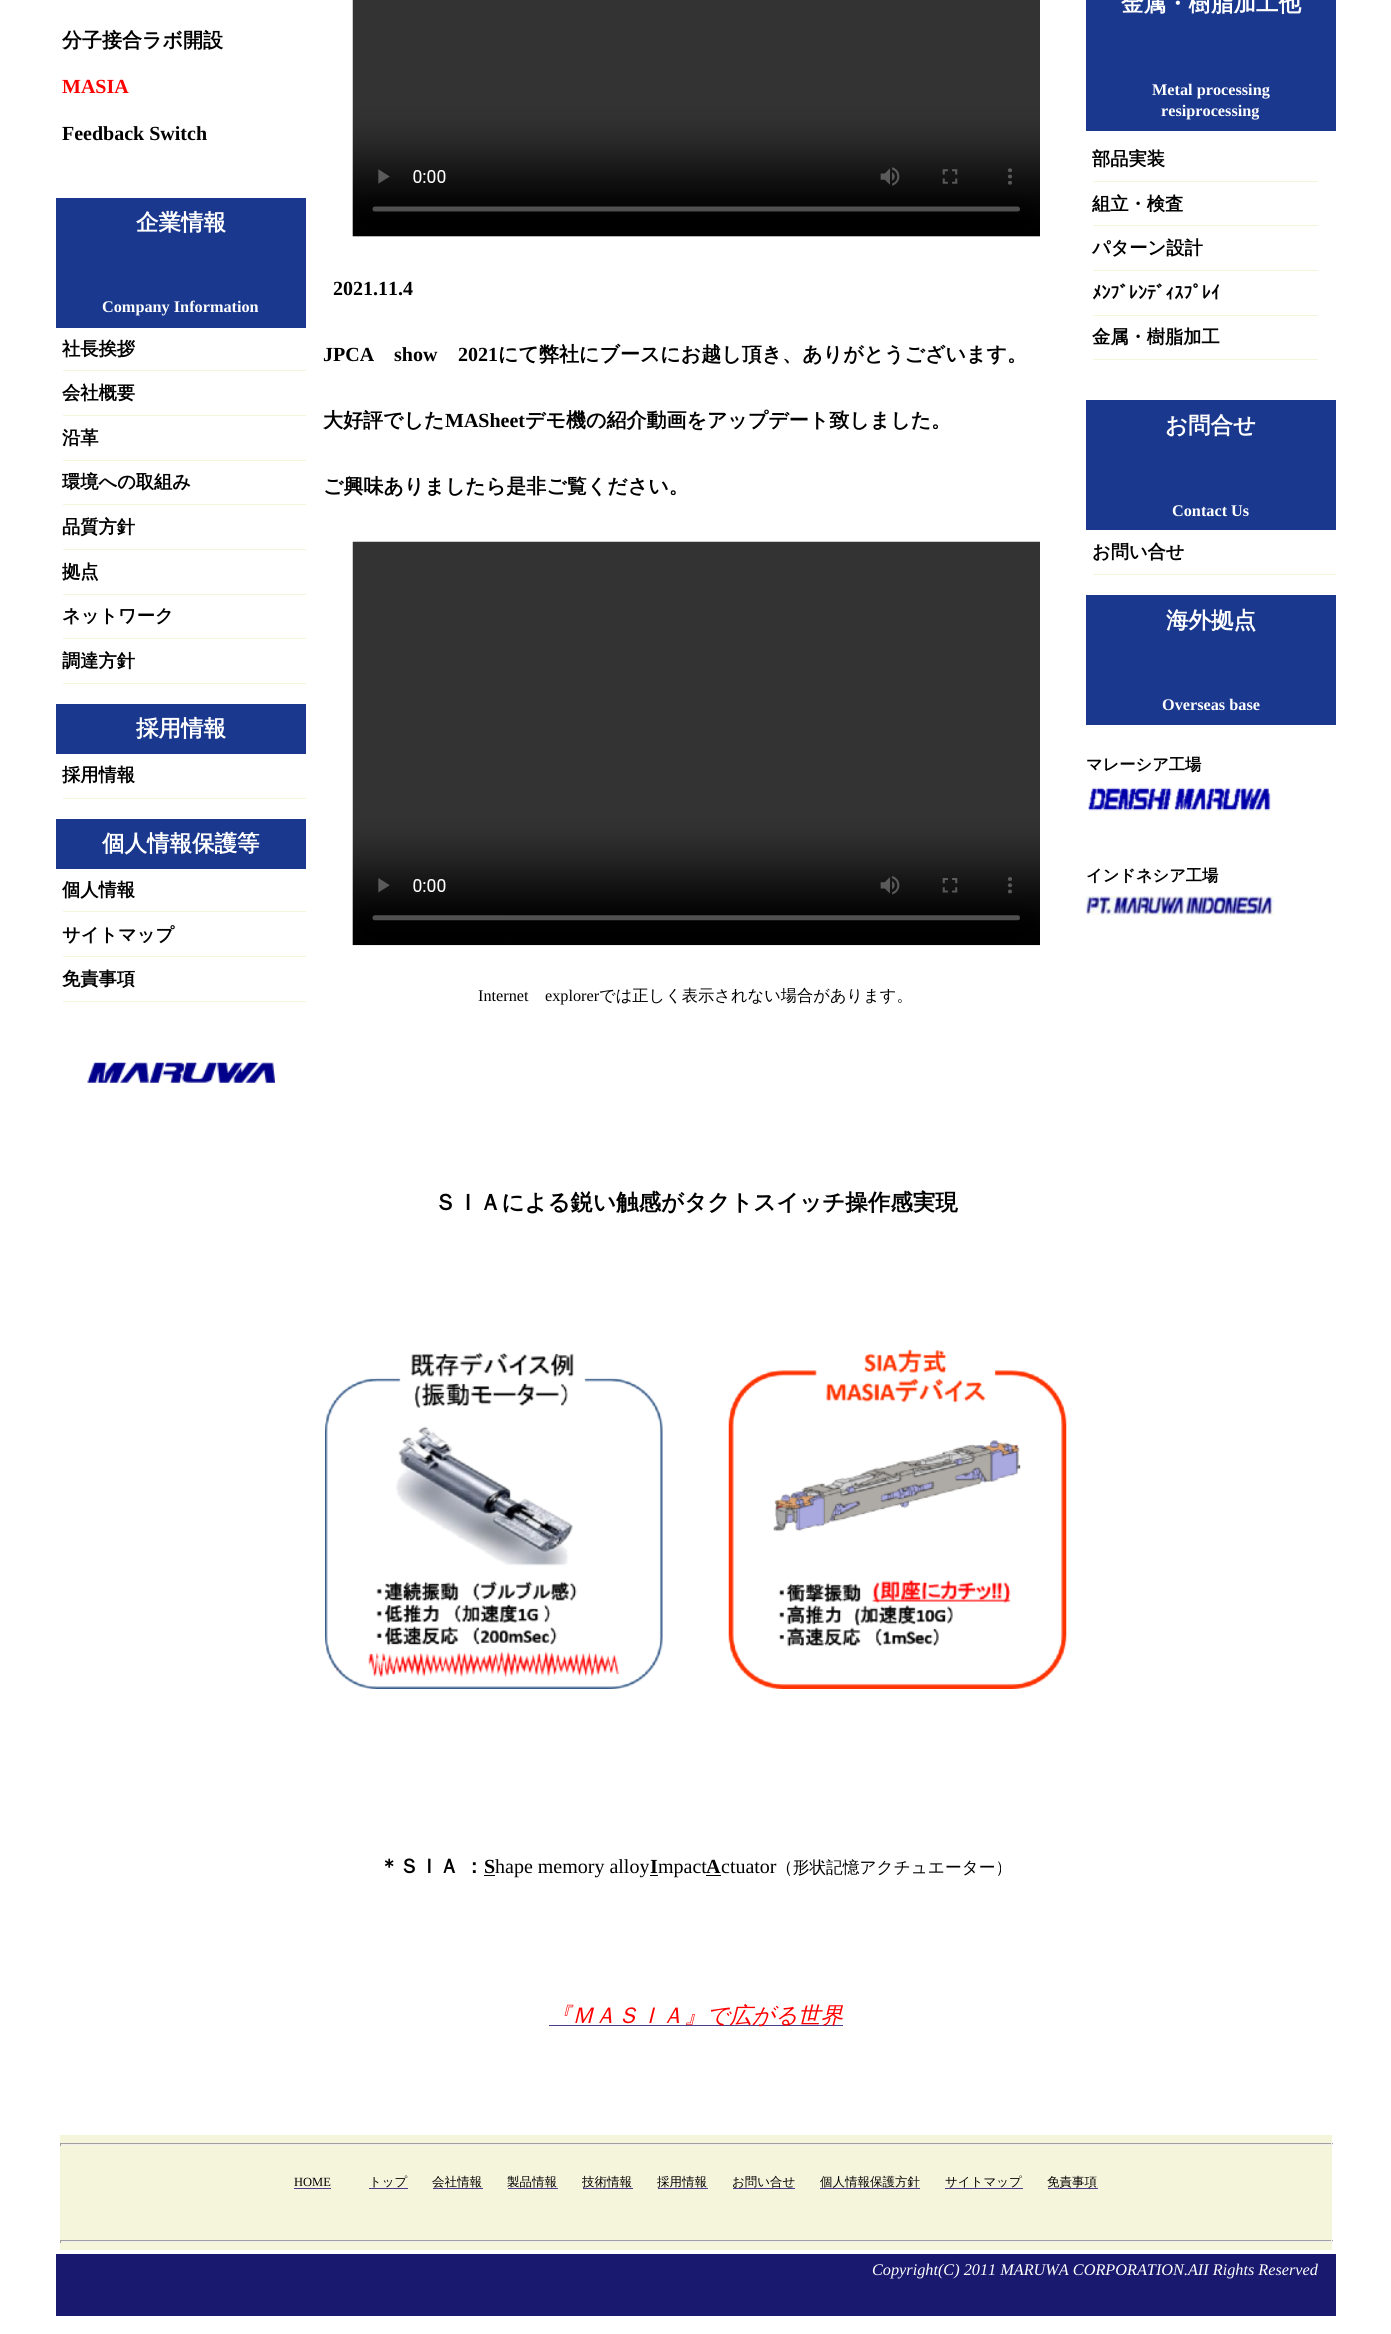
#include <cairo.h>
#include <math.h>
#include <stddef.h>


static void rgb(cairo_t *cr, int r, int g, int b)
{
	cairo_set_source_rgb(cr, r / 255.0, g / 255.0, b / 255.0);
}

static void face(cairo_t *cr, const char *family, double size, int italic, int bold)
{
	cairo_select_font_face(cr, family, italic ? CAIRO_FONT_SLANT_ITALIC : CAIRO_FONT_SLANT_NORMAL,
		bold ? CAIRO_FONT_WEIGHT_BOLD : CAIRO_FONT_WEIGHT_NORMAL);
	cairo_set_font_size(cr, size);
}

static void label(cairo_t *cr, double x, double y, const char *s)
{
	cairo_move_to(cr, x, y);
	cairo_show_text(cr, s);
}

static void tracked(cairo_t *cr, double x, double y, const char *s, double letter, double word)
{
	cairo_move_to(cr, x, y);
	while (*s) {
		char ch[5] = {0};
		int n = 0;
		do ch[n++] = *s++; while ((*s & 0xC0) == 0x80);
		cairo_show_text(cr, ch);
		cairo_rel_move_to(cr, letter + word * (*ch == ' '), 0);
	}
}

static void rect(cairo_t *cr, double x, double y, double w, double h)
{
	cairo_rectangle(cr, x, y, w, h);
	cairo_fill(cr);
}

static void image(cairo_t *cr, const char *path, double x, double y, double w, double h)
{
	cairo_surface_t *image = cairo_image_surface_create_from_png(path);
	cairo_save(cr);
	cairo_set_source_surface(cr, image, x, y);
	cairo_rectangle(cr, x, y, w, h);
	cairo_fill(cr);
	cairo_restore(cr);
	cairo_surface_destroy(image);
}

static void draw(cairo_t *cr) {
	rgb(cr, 255, 255, 255);
	cairo_paint(cr);
	face(cr, "WenQuanYi Zen Hei", 20, 0, 1);
	rgb(cr, 0, 0, 0);
	label(cr, 62, 47, "分子接合ラボ開設");
	face(cr, "Liberation Serif", 20, 0, 1);
	rgb(cr, 255, 0, 0);
	label(cr, 62, 93, "MASIA");
	rgb(cr, 0, 0, 0);
	label(cr, 62, 140, "Feedback Switch");
	rgb(cr, 25, 56, 142);
	rect(cr, 56, 198, 250, 130);
	face(cr, "WenQuanYi Zen Hei", 22.5, 0, 1);
	rgb(cr, 255, 255, 255);
	label(cr, 136, 230, "企業情報");
	face(cr, "Liberation Serif", 16.25, 0, 1);
	label(cr, 102, 312, "Company Information");
	rgb(cr, 245, 245, 220);
	rect(cr, 63, 370, 243, 1);
	face(cr, "WenQuanYi Zen Hei", 18.25, 0, 1);
	rgb(cr, 0, 0, 0);
	label(cr, 62, 355, "社長挨拶");
	rgb(cr, 245, 245, 220);
	rect(cr, 63, 415, 243, 1);
	rgb(cr, 0, 0, 0);
	label(cr, 62, 399, "会社概要");
	rgb(cr, 245, 245, 220);
	rect(cr, 63, 460, 243, 1);
	rgb(cr, 0, 0, 0);
	label(cr, 62, 444, "沿革");
	rgb(cr, 245, 245, 220);
	rect(cr, 63, 504, 243, 1);
	rgb(cr, 0, 0, 0);
	label(cr, 62, 488, "環境への取組み");
	rgb(cr, 245, 245, 220);
	rect(cr, 63, 549, 243, 1);
	rgb(cr, 0, 0, 0);
	label(cr, 62, 533, "品質方針");
	rgb(cr, 245, 245, 220);
	rect(cr, 63, 594, 243, 1);
	rgb(cr, 0, 0, 0);
	label(cr, 62, 578, "拠点");
	rgb(cr, 245, 245, 220);
	rect(cr, 63, 638, 243, 1);
	rgb(cr, 0, 0, 0);
	label(cr, 62, 622, "ネットワーク");
	rgb(cr, 245, 245, 220);
	rect(cr, 63, 683, 243, 1);
	rgb(cr, 0, 0, 0);
	label(cr, 62, 667, "調達方針");
	rgb(cr, 25, 56, 142);
	rect(cr, 56, 704, 250, 50);
	face(cr, "WenQuanYi Zen Hei", 22.5, 0, 1);
	rgb(cr, 255, 255, 255);
	label(cr, 136, 736, "採用情報");
	rgb(cr, 245, 245, 220);
	rect(cr, 63, 798, 243, 1);
	face(cr, "WenQuanYi Zen Hei", 18.25, 0, 1);
	rgb(cr, 0, 0, 0);
	label(cr, 62, 781, "採用情報");
	rgb(cr, 25, 56, 142);
	rect(cr, 56, 819, 250, 50);
	face(cr, "WenQuanYi Zen Hei", 22.5, 0, 1);
	rgb(cr, 255, 255, 255);
	label(cr, 102, 851, "個人情報保護等");
	rgb(cr, 245, 245, 220);
	rect(cr, 63, 911, 243, 1);
	face(cr, "WenQuanYi Zen Hei", 18.25, 0, 1);
	rgb(cr, 0, 0, 0);
	label(cr, 62, 896, "個人情報");
	rgb(cr, 245, 245, 220);
	rect(cr, 63, 956, 243, 1);
	rgb(cr, 0, 0, 0);
	label(cr, 62, 941, "サイトマップ");
	rgb(cr, 245, 245, 220);
	rect(cr, 63, 1001, 243, 1);
	rgb(cr, 0, 0, 0);
	label(cr, 62, 985, "免責事項");
	image(cr, "image0.png", 87, 1062, 188, 21);
	image(cr, "image1.png", 352, 0, 688, 237);
	face(cr, "Liberation Serif", 20, 0, 1);
	label(cr, 333, 295, "2021.11.4");
	label(cr, 323, 361, "JPCA");
	label(cr, 394, 361, "show");
	label(cr, 458, 361, "2021");
	face(cr, "WenQuanYi Zen Hei", 20, 0, 1);
	label(cr, 498, 361, "にて弊社にブースにお越し頂き、ありがとうございます。");
	label(cr, 323, 427, "大好評でした");
	face(cr, "Liberation Serif", 20, 0, 1);
	label(cr, 445, 427, "MASheet");
	face(cr, "WenQuanYi Zen Hei", 20, 0, 1);
	label(cr, 525, 427, "デモ機の紹介動画をアップデート致しました。");
	label(cr, 323, 493, "ご興味ありましたら是非ご覧ください。");
	image(cr, "image2.png", 352, 541, 688, 405);
	face(cr, "Liberation Serif", 16.25, 0, 0);
	label(cr, 478, 1001, "Internet");
	label(cr, 545, 1001, "explorer");
	face(cr, "WenQuanYi Zen Hei Medium", 16.25, 0, 0);
	label(cr, 599, 1001, "では正しく表示されない場合があります。");
	face(cr, "WenQuanYi Zen Hei", 22.5, 0, 1);
	label(cr, 434, 1210, "ＳＩＡによる鋭い触感がタクトスイッチ操作感実現");
	image(cr, "image3.png", 325, 1352, 338, 337);
	image(cr, "image4.png", 728, 1349, 339, 340);
	face(cr, "WenQuanYi Zen Hei", 20, 0, 1);
	tracked(cr, 379, 1873, "＊ＳＩＡ ：", 0, -1);
	face(cr, "Liberation Serif", 20, 0, 1);
	label(cr, 484, 1873, "S");
	face(cr, "Liberation Serif", 20, 0, 0);
	label(cr, 495, 1873, "hape memory alloy");
	rect(cr, 484, 1875, 11, 1);
	face(cr, "Liberation Serif", 20, 0, 1);
	label(cr, 650, 1873, "I");
	rect(cr, 650, 1875, 8, 1);
	face(cr, "Liberation Serif", 20, 0, 0);
	label(cr, 658, 1873, "mpact");
	rect(cr, 706, 1875, 15, 1);
	face(cr, "Liberation Serif", 20, 0, 1);
	label(cr, 706, 1873, "A");
	face(cr, "Liberation Serif", 20, 0, 0);
	label(cr, 721, 1873, "ctuator");
	face(cr, "WenQuanYi Zen Hei Medium", 16.7, 0, 0);
	label(cr, 776, 1873, "（形状記憶アクチュエーター）");
	rgb(cr, 72, 61, 139);
	rect(cr, 549, 2025, 294, 1);
	face(cr, "WenQuanYi Zen Hei Medium", 22.5, 1, 0);
	rgb(cr, 255, 0, 0);
	label(cr, 549, 2023, "『ＭＡＳＩＡ』で広がる世界");
	rgb(cr, 25, 56, 142);
	rect(cr, 1086, 0, 250, 131);
	face(cr, "WenQuanYi Zen Hei", 22.5, 0, 1);
	rgb(cr, 255, 255, 255);
	label(cr, 1121, 11, "金属・樹脂加工他");
	face(cr, "Liberation Serif", 16.25, 0, 1);
	label(cr, 1152, 95, "Metal processing");
	label(cr, 1161, 116, "resiprocessing");
	rgb(cr, 245, 245, 220);
	rect(cr, 1093, 181, 225, 1);
	face(cr, "WenQuanYi Zen Hei", 18.25, 0, 1);
	rgb(cr, 0, 0, 0);
	label(cr, 1092, 165, "部品実装");
	rgb(cr, 245, 245, 220);
	rect(cr, 1093, 225, 225, 1);
	rgb(cr, 0, 0, 0);
	label(cr, 1092, 210, "組立・検査");
	rgb(cr, 245, 245, 220);
	rect(cr, 1093, 270, 225, 1);
	rgb(cr, 0, 0, 0);
	label(cr, 1092, 254, "パターン設計");
	rgb(cr, 245, 245, 220);
	rect(cr, 1093, 315, 225, 1);
	face(cr, "IPAPGothic", 18.25, 0, 1);
	rgb(cr, 0, 0, 0);
	label(cr, 1092, 299, "ﾒﾝﾌﾞﾚﾝﾃﾞｨｽﾌﾟﾚｲ");
	rgb(cr, 245, 245, 220);
	rect(cr, 1093, 359, 225, 1);
	face(cr, "WenQuanYi Zen Hei", 18.25, 0, 1);
	rgb(cr, 0, 0, 0);
	label(cr, 1092, 343, "金属・樹脂加工");
	rgb(cr, 25, 56, 142);
	rect(cr, 1086, 400, 250, 130);
	face(cr, "WenQuanYi Zen Hei", 22.5, 0, 1);
	rgb(cr, 255, 255, 255);
	label(cr, 1165, 433, "お問合せ");
	face(cr, "Liberation Serif", 16.25, 0, 1);
	label(cr, 1172, 516, "Contact Us");
	rgb(cr, 245, 245, 220);
	rect(cr, 1093, 574, 243, 1);
	face(cr, "WenQuanYi Zen Hei", 18.25, 0, 1);
	rgb(cr, 0, 0, 0);
	label(cr, 1092, 558, "お問い合せ");
	rgb(cr, 25, 56, 142);
	rect(cr, 1086, 595, 250, 130);
	face(cr, "WenQuanYi Zen Hei", 22.5, 0, 1);
	rgb(cr, 255, 255, 255);
	label(cr, 1166, 628, "海外拠点");
	face(cr, "Liberation Serif", 16.25, 0, 1);
	label(cr, 1162, 710, "Overseas base");
	face(cr, "WenQuanYi Zen Hei", 16.25, 0, 1);
	rgb(cr, 0, 0, 0);
	label(cr, 1086, 770, "マレーシア工場");
	image(cr, "image5.png", 1088, 787, 183, 24);
	label(cr, 1086, 881, "インドネシア工場");
	image(cr, "image6.png", 1086, 896, 188, 19);
	rgb(cr, 245, 245, 220);
	rect(cr, 60, 2135, 1272, 115);
	rgb(cr, 159, 159, 159);
	rect(cr, 60, 2143, 1273, 1);
	rgb(cr, 238, 238, 238);
	rect(cr, 1331, 2143, 1, 3);
	rect(cr, 60, 2144, 1273, 1);
	rgb(cr, 159, 159, 159);
	rect(cr, 60, 2143, 1, 3);
	face(cr, "Liberation Serif", 12.5, 0, 0);
	rgb(cr, 0, 0, 0);
	label(cr, 294, 2186, "HOME");
	rgb(cr, 72, 61, 139);
	rect(cr, 294, 2188, 37, 1);
	face(cr, "WenQuanYi Zen Hei Medium", 12.5, 0, 0);
	rgb(cr, 0, 0, 0);
	label(cr, 369, 2186, "トップ");
	rgb(cr, 72, 61, 139);
	rect(cr, 369, 2188, 39, 1);
	rgb(cr, 0, 0, 0);
	label(cr, 432, 2186, "会社情報");
	rgb(cr, 72, 61, 139);
	rect(cr, 433, 2188, 50, 1);
	rgb(cr, 0, 0, 0);
	label(cr, 507, 2186, "製品情報");
	rgb(cr, 72, 61, 139);
	rect(cr, 508, 2188, 50, 1);
	rgb(cr, 0, 0, 0);
	label(cr, 582, 2186, "技術情報");
	rgb(cr, 72, 61, 139);
	rect(cr, 583, 2188, 50, 1);
	rgb(cr, 0, 0, 0);
	label(cr, 657, 2186, "採用情報");
	rgb(cr, 72, 61, 139);
	rect(cr, 658, 2188, 50, 1);
	rgb(cr, 0, 0, 0);
	label(cr, 732, 2186, "お問い合せ");
	rgb(cr, 72, 61, 139);
	rect(cr, 733, 2188, 62, 1);
	rgb(cr, 0, 0, 0);
	label(cr, 820, 2186, "個人情報保護方針");
	rgb(cr, 72, 61, 139);
	rect(cr, 820, 2188, 100, 1);
	rgb(cr, 0, 0, 0);
	label(cr, 945, 2186, "サイトマップ");
	rgb(cr, 72, 61, 139);
	rect(cr, 945, 2188, 78, 1);
	rect(cr, 1048, 2188, 50, 1);
	rgb(cr, 0, 0, 0);
	label(cr, 1047, 2186, "免責事項");
	rgb(cr, 159, 159, 159);
	rect(cr, 60, 2240, 1273, 1);
	rgb(cr, 238, 238, 238);
	rect(cr, 1331, 2240, 1, 3);
	rect(cr, 60, 2241, 1273, 1);
	rgb(cr, 159, 159, 159);
	rect(cr, 60, 2240, 1, 3);
	rgb(cr, 25, 25, 112);
	rect(cr, 56, 2254, 1280, 62);
	face(cr, "Liberation Serif", 16.25, 1, 0);
	rgb(cr, 255, 255, 255);
	label(cr, 872, 2275, "Copyright(C) 2011 MARUWA CORPORATION.AII Rights Reserved");
}

int main(void) {
	cairo_surface_t *surface = cairo_image_surface_create(CAIRO_FORMAT_RGB24, 1391, 2334);
	cairo_t *cr = cairo_create(surface);
	cairo_font_options_t *options = cairo_font_options_create();
	cairo_font_options_set_hint_metrics(options, CAIRO_HINT_METRICS_OFF);
	cairo_font_options_set_hint_style(options, CAIRO_HINT_STYLE_NONE);
	cairo_set_font_options(cr, options);
	cairo_set_miter_limit(cr, 4);
	draw(cr);
	cairo_surface_write_to_png(surface, "render.png");
	cairo_font_options_destroy(options);
	cairo_destroy(cr);
	cairo_surface_destroy(surface);
	return 0;
}
